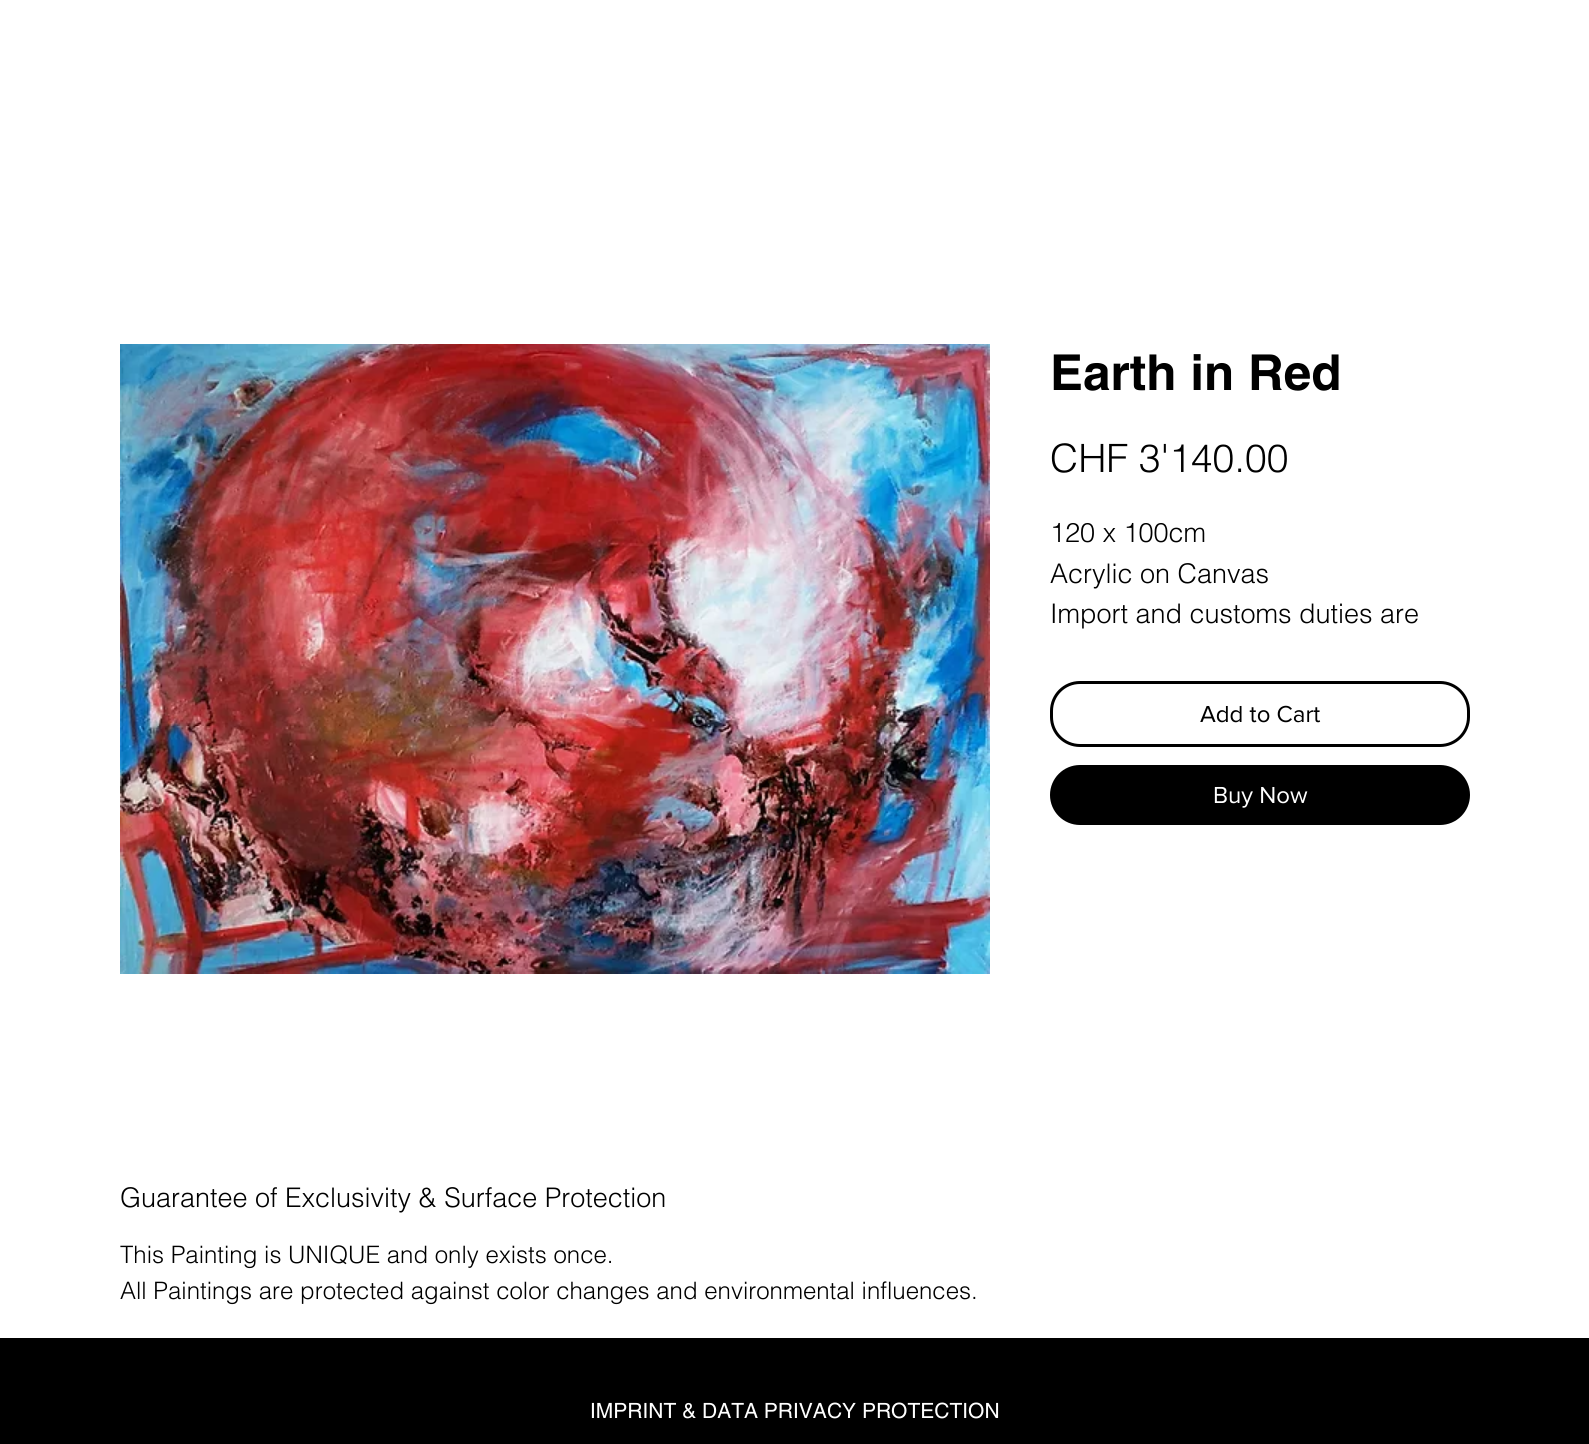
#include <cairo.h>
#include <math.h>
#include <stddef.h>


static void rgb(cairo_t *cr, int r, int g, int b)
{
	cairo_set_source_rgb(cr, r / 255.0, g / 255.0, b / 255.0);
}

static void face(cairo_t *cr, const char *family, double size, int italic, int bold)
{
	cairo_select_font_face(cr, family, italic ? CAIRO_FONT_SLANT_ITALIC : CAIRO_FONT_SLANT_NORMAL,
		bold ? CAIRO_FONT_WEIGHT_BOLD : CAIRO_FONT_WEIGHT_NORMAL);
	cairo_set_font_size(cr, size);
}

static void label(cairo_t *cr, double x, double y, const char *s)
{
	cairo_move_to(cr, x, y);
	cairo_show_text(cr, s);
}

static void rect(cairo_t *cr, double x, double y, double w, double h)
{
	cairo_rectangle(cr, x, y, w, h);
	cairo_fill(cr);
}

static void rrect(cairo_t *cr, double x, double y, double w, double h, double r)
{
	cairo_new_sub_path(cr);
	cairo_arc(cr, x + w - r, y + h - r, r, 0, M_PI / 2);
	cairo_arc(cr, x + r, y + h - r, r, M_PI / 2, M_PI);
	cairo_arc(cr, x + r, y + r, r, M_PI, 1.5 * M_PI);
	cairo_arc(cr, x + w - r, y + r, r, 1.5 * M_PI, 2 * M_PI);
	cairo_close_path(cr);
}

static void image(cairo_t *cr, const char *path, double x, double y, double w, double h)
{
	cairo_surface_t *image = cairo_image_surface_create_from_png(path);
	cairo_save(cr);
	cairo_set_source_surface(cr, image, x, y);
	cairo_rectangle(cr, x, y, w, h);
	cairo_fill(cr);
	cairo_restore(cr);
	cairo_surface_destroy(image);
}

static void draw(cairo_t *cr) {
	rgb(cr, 255, 255, 255);
	cairo_paint(cr);
	image(cr, "image0.png", 120, 344, 870, 630);
	face(cr, "helvetica", 49.5, 0, 1);
	rgb(cr, 0, 0, 0);
	label(cr, 1050, 390, "Earth in Red");
	face(cr, "helvetica Light", 39, 0, 0);
	label(cr, 1050, 472, "CHF 3'140.00");
	face(cr, "helvetica Light", 27, 0, 0);
	label(cr, 1050, 542, "120 x 100cm");
	label(cr, 1050, 583, "Acrylic on Canvas");
	label(cr, 1050, 623, "Import and customs duties are");
	rrect(cr, 1051.5, 682.5, 417, 63, 28.5);
	cairo_set_line_width(cr, 3);
	cairo_stroke(cr);
	face(cr, "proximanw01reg", 24, 0, 0);
	label(cr, 1200, 722, "Add to Cart");
	rrect(cr, 1050, 765, 420, 60, 30);
	cairo_fill(cr);
	rgb(cr, 255, 255, 255);
	label(cr, 1213, 803, "Buy Now");
	face(cr, "helvetica Light", 27, 0, 0);
	rgb(cr, 0, 0, 0);
	label(cr, 120, 1207, "Guarantee of Exclusivity & Surface Protection");
	face(cr, "helvetica Light", 24, 0, 0);
	label(cr, 120, 1263, "This Painting is UNIQUE and only exists once.");
	label(cr, 120, 1299, "All Paintings are protected against color changes and environmental influences.");
	rect(cr, 0, 1338, 1589, 106);
	face(cr, "helvetica", 21, 0, 0);
	rgb(cr, 255, 255, 255);
	label(cr, 590, 1418, "IMPRINT & DATA PRIVACY PROTECTION");
}

int main(void) {
	cairo_surface_t *surface = cairo_image_surface_create(CAIRO_FORMAT_RGB24, 1589, 1444);
	cairo_t *cr = cairo_create(surface);
	cairo_font_options_t *options = cairo_font_options_create();
	cairo_font_options_set_hint_metrics(options, CAIRO_HINT_METRICS_OFF);
	cairo_font_options_set_hint_style(options, CAIRO_HINT_STYLE_NONE);
	cairo_set_font_options(cr, options);
	cairo_set_miter_limit(cr, 4);
	draw(cr);
	cairo_surface_write_to_png(surface, "render.png");
	cairo_font_options_destroy(options);
	cairo_destroy(cr);
	cairo_surface_destroy(surface);
	return 0;
}
